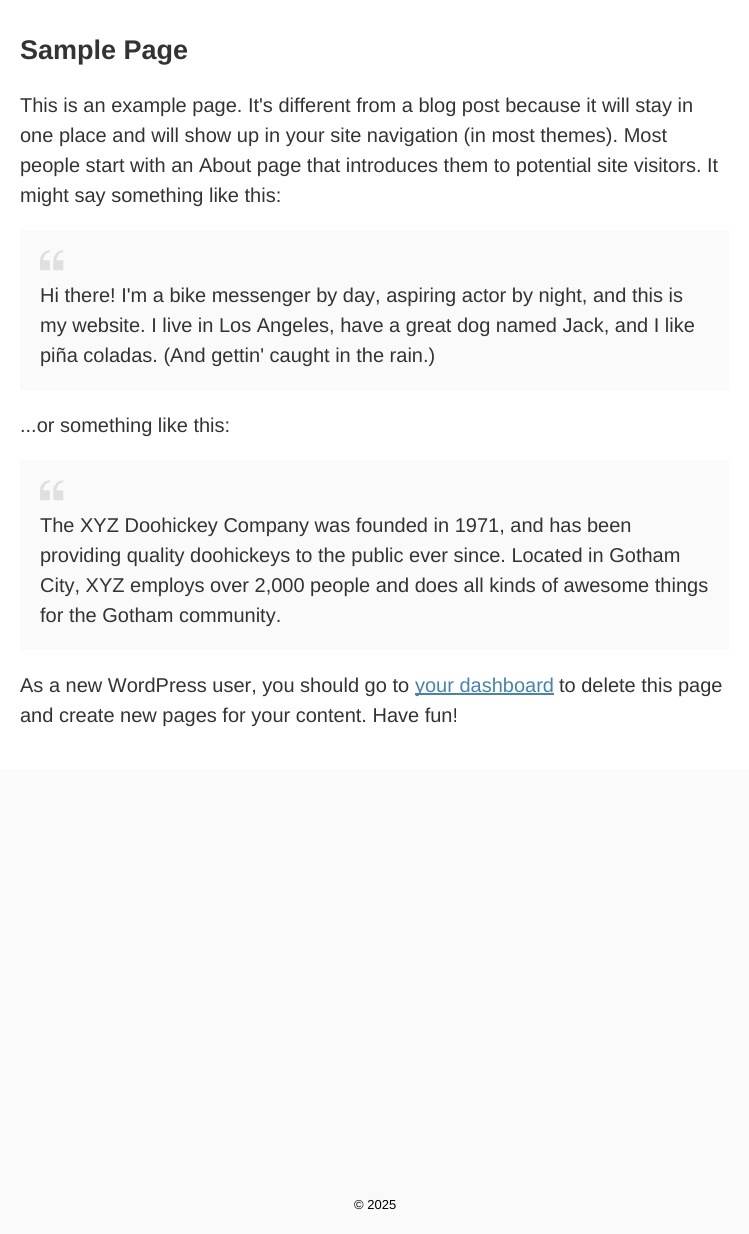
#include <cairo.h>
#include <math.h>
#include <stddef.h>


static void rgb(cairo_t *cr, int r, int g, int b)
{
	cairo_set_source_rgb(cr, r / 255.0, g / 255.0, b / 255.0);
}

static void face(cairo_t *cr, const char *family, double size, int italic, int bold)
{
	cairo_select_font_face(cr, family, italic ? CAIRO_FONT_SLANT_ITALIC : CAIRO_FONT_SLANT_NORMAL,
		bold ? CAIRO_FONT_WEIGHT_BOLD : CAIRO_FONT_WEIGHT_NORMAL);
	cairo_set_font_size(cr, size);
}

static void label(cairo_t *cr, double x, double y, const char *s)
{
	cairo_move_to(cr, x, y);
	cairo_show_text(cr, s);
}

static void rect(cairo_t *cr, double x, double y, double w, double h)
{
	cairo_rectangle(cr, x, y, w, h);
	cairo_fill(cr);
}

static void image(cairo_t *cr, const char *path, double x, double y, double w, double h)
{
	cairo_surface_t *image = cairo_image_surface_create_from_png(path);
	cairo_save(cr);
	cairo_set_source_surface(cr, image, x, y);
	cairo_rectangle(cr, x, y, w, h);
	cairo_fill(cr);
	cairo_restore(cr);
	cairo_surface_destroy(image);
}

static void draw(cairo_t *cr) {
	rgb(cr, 250, 250, 250);
	cairo_paint(cr);
	rgb(cr, 255, 255, 255);
	rect(cr, 0, 0, 749, 770);
	face(cr, "Liberation Sans", 27, 0, 1);
	rgb(cr, 51, 51, 51);
	label(cr, 20, 59, "Sample Page");
	face(cr, "Liberation Sans", 20, 0, 0);
	label(cr, 20, 112, "This is an example page. It's different from a blog post because it will stay in");
	label(cr, 20, 142, "one place and will show up in your site navigation (in most themes). Most");
	label(cr, 20, 172, "people start with an About page that introduces them to potential site visitors. It");
	label(cr, 20, 202, "might say something like this:");
	rgb(cr, 250, 250, 250);
	rect(cr, 20, 230, 709, 160);
	image(cr, "image0.png", 40, 250, 24, 21);
	rgb(cr, 51, 51, 51);
	label(cr, 40, 302, "Hi there! I'm a bike messenger by day, aspiring actor by night, and this is");
	label(cr, 40, 332, "my website. I live in Los Angeles, have a great dog named Jack, and I like");
	label(cr, 40, 362, "piña coladas. (And gettin' caught in the rain.)");
	label(cr, 20, 432, "...or something like this:");
	rgb(cr, 250, 250, 250);
	rect(cr, 20, 460, 709, 190);
	image(cr, "image0.png", 40, 480, 24, 21);
	rgb(cr, 51, 51, 51);
	label(cr, 40, 532, "The XYZ Doohickey Company was founded in 1971, and has been");
	label(cr, 40, 562, "providing quality doohickeys to the public ever since. Located in Gotham");
	label(cr, 40, 592, "City, XYZ employs over 2,000 people and does all kinds of awesome things");
	label(cr, 40, 622, "for the Gotham community.");
	label(cr, 20, 692, "As a new WordPress user, you should go to");
	rgb(cr, 70, 130, 180);
	rect(cr, 415, 693, 139, 2);
	label(cr, 415, 692, "your dashboard");
	rgb(cr, 51, 51, 51);
	label(cr, 559, 692, "to delete this page");
	label(cr, 20, 722, "and create new pages for your content. Have fun!");
	face(cr, "Liberation Sans", 13, 0, 0);
	rgb(cr, 0, 0, 0);
	label(cr, 354, 1209, "© 2025");
}

int main(void) {
	cairo_surface_t *surface = cairo_image_surface_create(CAIRO_FORMAT_RGB24, 749, 1234);
	cairo_t *cr = cairo_create(surface);
	cairo_font_options_t *options = cairo_font_options_create();
	cairo_font_options_set_hint_metrics(options, CAIRO_HINT_METRICS_OFF);
	cairo_font_options_set_hint_style(options, CAIRO_HINT_STYLE_NONE);
	cairo_set_font_options(cr, options);
	cairo_set_miter_limit(cr, 4);
	draw(cr);
	cairo_surface_write_to_png(surface, "render.png");
	cairo_font_options_destroy(options);
	cairo_destroy(cr);
	cairo_surface_destroy(surface);
	return 0;
}
